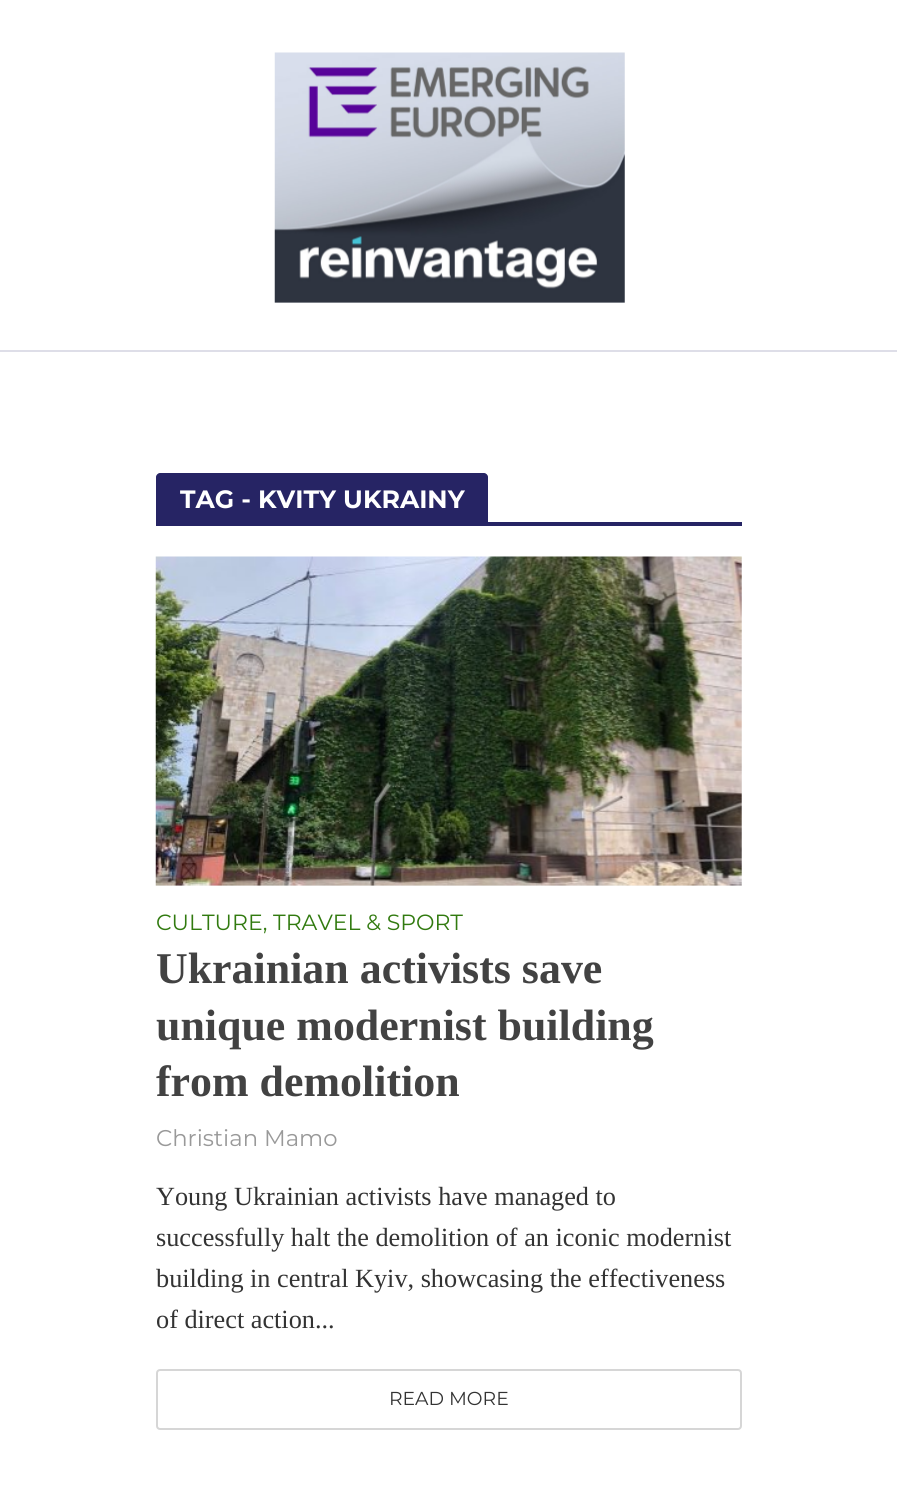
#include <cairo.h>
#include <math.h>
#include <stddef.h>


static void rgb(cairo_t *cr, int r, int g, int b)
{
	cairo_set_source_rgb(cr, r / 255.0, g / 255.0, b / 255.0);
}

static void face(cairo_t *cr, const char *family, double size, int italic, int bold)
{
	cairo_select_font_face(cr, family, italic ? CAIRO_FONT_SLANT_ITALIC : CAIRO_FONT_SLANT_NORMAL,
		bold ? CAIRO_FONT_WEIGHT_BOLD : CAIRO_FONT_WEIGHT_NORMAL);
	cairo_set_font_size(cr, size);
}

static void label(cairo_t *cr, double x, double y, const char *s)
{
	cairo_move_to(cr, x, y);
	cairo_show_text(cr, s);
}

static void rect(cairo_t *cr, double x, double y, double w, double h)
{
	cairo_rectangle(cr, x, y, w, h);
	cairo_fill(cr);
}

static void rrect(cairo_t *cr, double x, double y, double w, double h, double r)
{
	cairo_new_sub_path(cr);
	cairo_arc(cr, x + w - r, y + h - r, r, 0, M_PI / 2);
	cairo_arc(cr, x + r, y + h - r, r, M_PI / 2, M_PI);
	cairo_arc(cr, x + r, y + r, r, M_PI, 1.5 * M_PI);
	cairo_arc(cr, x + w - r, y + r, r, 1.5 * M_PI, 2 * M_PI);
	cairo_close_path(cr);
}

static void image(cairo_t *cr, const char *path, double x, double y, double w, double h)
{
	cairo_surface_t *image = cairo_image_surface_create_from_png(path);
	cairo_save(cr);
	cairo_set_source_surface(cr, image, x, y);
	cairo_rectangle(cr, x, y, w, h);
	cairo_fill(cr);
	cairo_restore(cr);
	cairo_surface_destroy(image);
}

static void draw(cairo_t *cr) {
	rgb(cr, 255, 255, 255);
	cairo_paint(cr);
	rgb(cr, 222, 222, 232);
	cairo_new_path(cr);
	cairo_move_to(cr, 0, -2);
	cairo_line_to(cr, 0, 0);
	cairo_line_to(cr, 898, 0);
	cairo_line_to(cr, 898, 350);
	cairo_line_to(cr, 0, 350);
	cairo_line_to(cr, 0, 352);
	cairo_line_to(cr, 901, 352);
	cairo_line_to(cr, 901, -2);
	cairo_close_path(cr);
	cairo_fill(cr);
	image(cr, "image0.png", 274, 52, 351, 251);
	rgb(cr, 38, 36, 100);
	cairo_new_path(cr);
	cairo_move_to(cr, 160, 473);
	cairo_line_to(cr, 484, 473);
	cairo_curve_to(cr, 486, 473, 488, 475, 488, 477);
	cairo_line_to(cr, 488, 522);
	cairo_line_to(cr, 156, 522);
	cairo_line_to(cr, 156, 477);
	cairo_curve_to(cr, 156, 475, 158, 473, 160, 473);
	cairo_close_path(cr);
	cairo_fill(cr);
	face(cr, "Montserrat", 25.1, 0, 1);
	rgb(cr, 255, 255, 255);
	label(cr, 180, 508, "TAG - KVITY UKRAINY");
	rgb(cr, 38, 36, 100);
	rect(cr, 156, 522, 586, 4);
	rgb(cr, 243, 243, 243);
	rect(cr, 156, 557, 586, 329);
	image(cr, "image1.png", 155, 556, 587, 330);
	face(cr, "Montserrat", 22, 0, 0);
	rgb(cr, 49, 122, 15);
	label(cr, 156, 930, "CULTURE, TRAVEL & SPORT");
	face(cr, "Liberation Serif", 43.9, 0, 1);
	rgb(cr, 66, 66, 66);
	label(cr, 156, 983, "Ukrainian activists save");
	label(cr, 156, 1040, "unique modernist building");
	label(cr, 156, 1096, "from demolition");
	face(cr, "Montserrat", 22.75, 0, 0);
	rgb(cr, 153, 153, 153);
	label(cr, 156, 1146, "Christian Mamo");
	face(cr, "Liberation Serif", 26.25, 0, 0);
	rgb(cr, 51, 51, 51);
	label(cr, 156, 1205, "Young Ukrainian activists have managed to");
	label(cr, 156, 1246, "successfully halt the demolition of an iconic modernist");
	label(cr, 156, 1287, "building in central Kyiv, showcasing the effectiveness");
	label(cr, 156, 1328, "of direct action...");
	rrect(cr, 157, 1370, 584, 59, 3);
	rgb(cr, 214, 214, 214);
	cairo_stroke(cr);
	face(cr, "Montserrat", 18.75, 0, 0);
	rgb(cr, 51, 51, 51);
	label(cr, 389, 1405, "READ MORE");
}

int main(void) {
	cairo_surface_t *surface = cairo_image_surface_create(CAIRO_FORMAT_RGB24, 897, 1496);
	cairo_t *cr = cairo_create(surface);
	cairo_font_options_t *options = cairo_font_options_create();
	cairo_font_options_set_hint_metrics(options, CAIRO_HINT_METRICS_OFF);
	cairo_font_options_set_hint_style(options, CAIRO_HINT_STYLE_NONE);
	cairo_set_font_options(cr, options);
	cairo_set_miter_limit(cr, 4);
	draw(cr);
	cairo_surface_write_to_png(surface, "render.png");
	cairo_font_options_destroy(options);
	cairo_destroy(cr);
	cairo_surface_destroy(surface);
	return 0;
}
